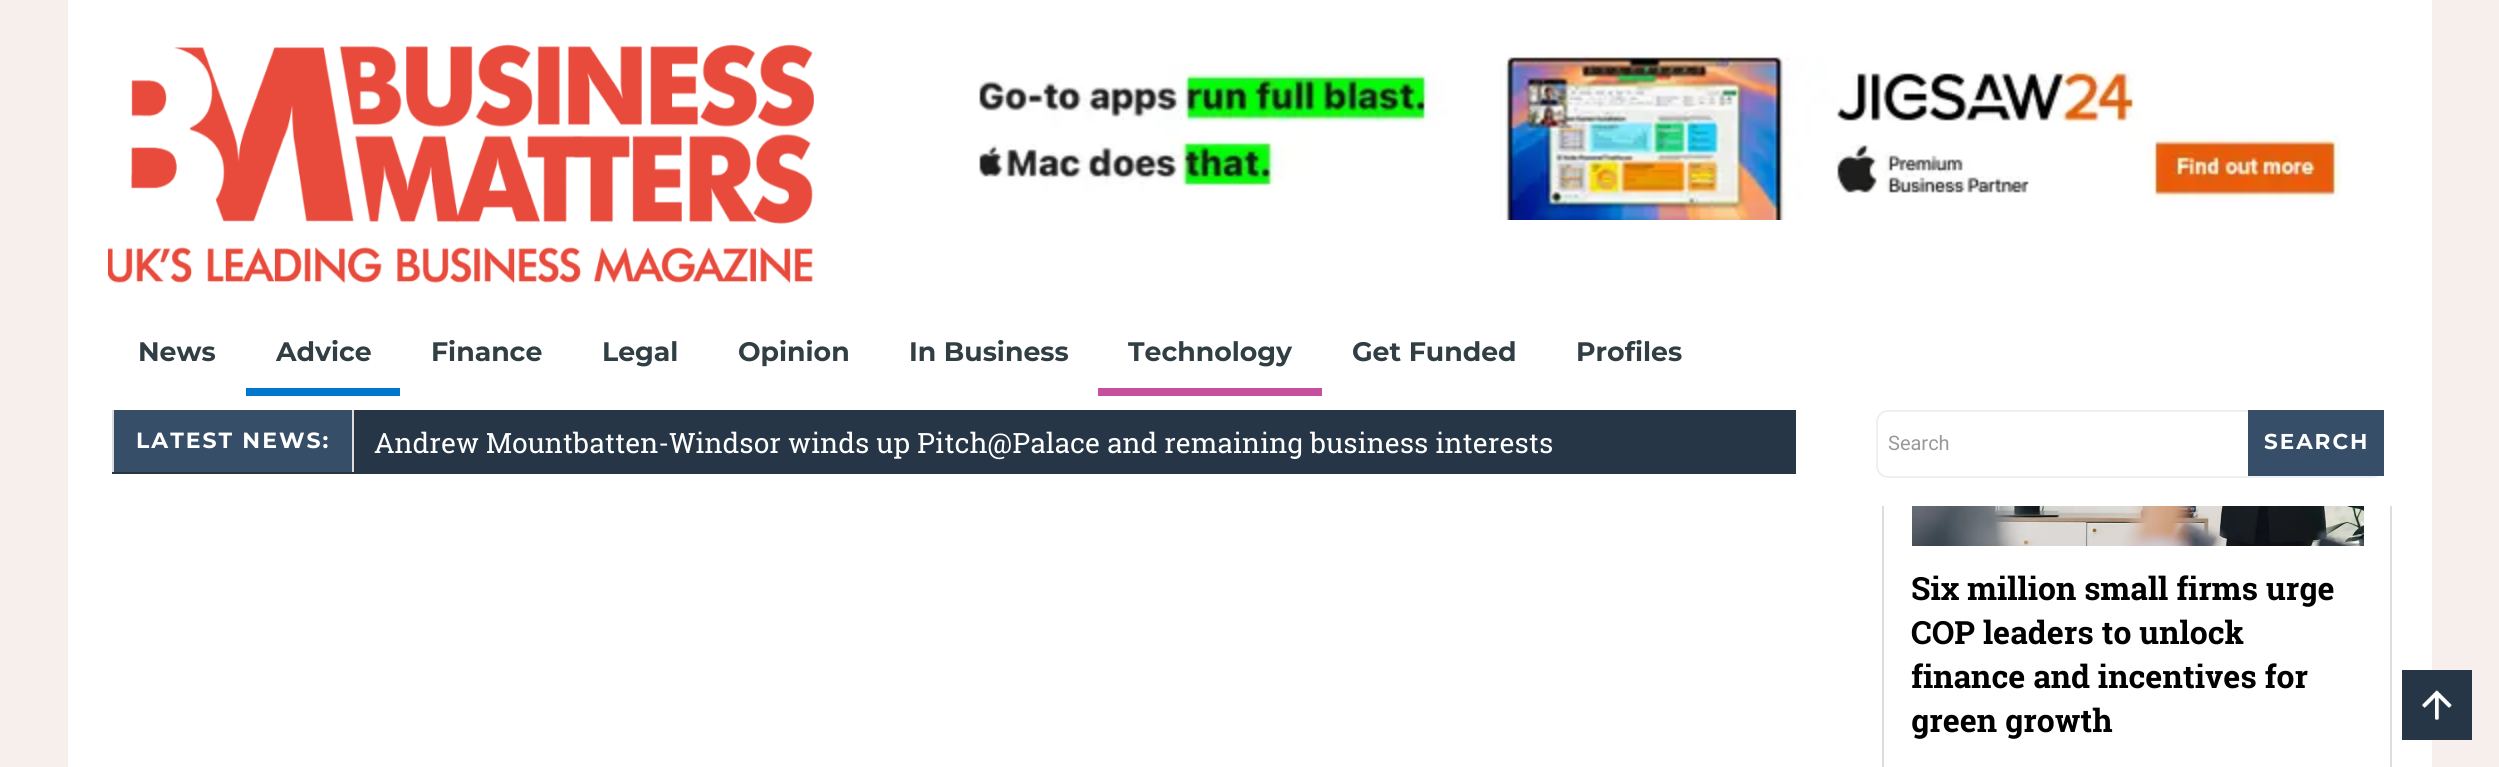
#include <cairo.h>
#include <math.h>
#include <stddef.h>


static void rgb(cairo_t *cr, int r, int g, int b)
{
	cairo_set_source_rgb(cr, r / 255.0, g / 255.0, b / 255.0);
}

static void face(cairo_t *cr, const char *family, double size, int italic, int bold)
{
	cairo_select_font_face(cr, family, italic ? CAIRO_FONT_SLANT_ITALIC : CAIRO_FONT_SLANT_NORMAL,
		bold ? CAIRO_FONT_WEIGHT_BOLD : CAIRO_FONT_WEIGHT_NORMAL);
	cairo_set_font_size(cr, size);
}

static void label(cairo_t *cr, double x, double y, const char *s)
{
	cairo_move_to(cr, x, y);
	cairo_show_text(cr, s);
}

static void tracked(cairo_t *cr, double x, double y, const char *s, double letter, double word)
{
	cairo_move_to(cr, x, y);
	while (*s) {
		char ch[5] = {0};
		int n = 0;
		do ch[n++] = *s++; while ((*s & 0xC0) == 0x80);
		cairo_show_text(cr, ch);
		cairo_rel_move_to(cr, letter + word * (*ch == ' '), 0);
	}
}

static void rect(cairo_t *cr, double x, double y, double w, double h)
{
	cairo_rectangle(cr, x, y, w, h);
	cairo_fill(cr);
}

static void rrect(cairo_t *cr, double x, double y, double w, double h, double r)
{
	cairo_new_sub_path(cr);
	cairo_arc(cr, x + w - r, y + h - r, r, 0, M_PI / 2);
	cairo_arc(cr, x + r, y + h - r, r, M_PI / 2, M_PI);
	cairo_arc(cr, x + r, y + r, r, M_PI, 1.5 * M_PI);
	cairo_arc(cr, x + w - r, y + r, r, 1.5 * M_PI, 2 * M_PI);
	cairo_close_path(cr);
}

static void image(cairo_t *cr, const char *path, double x, double y, double w, double h)
{
	cairo_surface_t *image = cairo_image_surface_create_from_png(path);
	cairo_save(cr);
	cairo_set_source_surface(cr, image, x, y);
	cairo_rectangle(cr, x, y, w, h);
	cairo_fill(cr);
	cairo_restore(cr);
	cairo_surface_destroy(image);
}

static void draw(cairo_t *cr) {
	rgb(cr, 247, 239, 236);
	cairo_paint(cr);
	rgb(cr, 255, 255, 255);
	rect(cr, 68, 0, 2364, 767);
	image(cr, "image0.png", 108, 44, 706, 240);
	image(cr, "image1.png", 979, 53, 1362, 167);
	face(cr, "Montserrat", 26.75, 0, 1);
	rgb(cr, 49, 62, 68);
	label(cr, 138, 361, "News");
	rgb(cr, 0, 118, 205);
	rect(cr, 246, 388, 154, 8);
	rgb(cr, 49, 62, 68);
	label(cr, 276, 361, "Advice");
	label(cr, 431, 361, "Finance");
	label(cr, 602, 361, "Legal");
	label(cr, 738, 361, "Opinion");
	label(cr, 909, 361, "In Business");
	rgb(cr, 198, 80, 158);
	rect(cr, 1098, 388, 224, 8);
	rgb(cr, 49, 62, 68);
	label(cr, 1128, 361, "Technology");
	label(cr, 1352, 361, "Get Funded");
	label(cr, 1576, 361, "Profiles");
	rgb(cr, 38, 54, 70);
	rect(cr, 112, 410, 1684, 64);
	rgb(cr, 54, 78, 104);
	rect(cr, 114, 410, 238, 62);
	rgb(cr, 221, 221, 221);
	rect(cr, 352, 410, 2, 62);
	rect(cr, 112, 410, 2, 62);
	face(cr, "Montserrat", 22, 0, 1);
	rgb(cr, 255, 255, 255);
	tracked(cr, 136, 448, "LATEST NEWS:", 2, 0);
	face(cr, "Roboto Slab", 28, 0, 0);
	label(cr, 374, 453, "Andrew Mountbatten-Windsor winds up Pitch@Palace and remaining business interests");
	rrect(cr, 1877, 411, 506, 66, 11);
	rgb(cr, 239, 239, 239);
	cairo_stroke(cr);
	face(cr, "Roboto", 20, 0, 0);
	rgb(cr, 153, 153, 153);
	label(cr, 1888, 450, "Search");
	rgb(cr, 54, 78, 104);
	rect(cr, 2248, 410, 136, 66);
	face(cr, "Montserrat", 21.5, 0, 1);
	rgb(cr, 255, 255, 255);
	tracked(cr, 2264, 449, "SEARCH", 2, 0);
	rgb(cr, 221, 221, 221);
	rect(cr, 2390, 506, 2, 261);
	rect(cr, 1882, 506, 2, 261);
	image(cr, "image2.png", 1912, 506, 452, 40);
	face(cr, "Roboto Slab", 32, 0, 1);
	rgb(cr, 0, 0, 0);
	label(cr, 1911, 600, "Six million small firms urge");
	label(cr, 1911, 644, "COP leaders to unlock");
	label(cr, 1911, 688, "finance and incentives for");
	label(cr, 1911, 732, "green growth");
	rgb(cr, 38, 54, 70);
	rect(cr, 2402, 670, 70, 70);
	image(cr, "image3.png", 2422, 690, 30, 30);
}

int main(void) {
	cairo_surface_t *surface = cairo_image_surface_create(CAIRO_FORMAT_RGB24, 2499, 767);
	cairo_t *cr = cairo_create(surface);
	cairo_font_options_t *options = cairo_font_options_create();
	cairo_font_options_set_hint_metrics(options, CAIRO_HINT_METRICS_OFF);
	cairo_font_options_set_hint_style(options, CAIRO_HINT_STYLE_NONE);
	cairo_set_font_options(cr, options);
	cairo_set_miter_limit(cr, 4);
	draw(cr);
	cairo_surface_write_to_png(surface, "render.png");
	cairo_font_options_destroy(options);
	cairo_destroy(cr);
	cairo_surface_destroy(surface);
	return 0;
}
